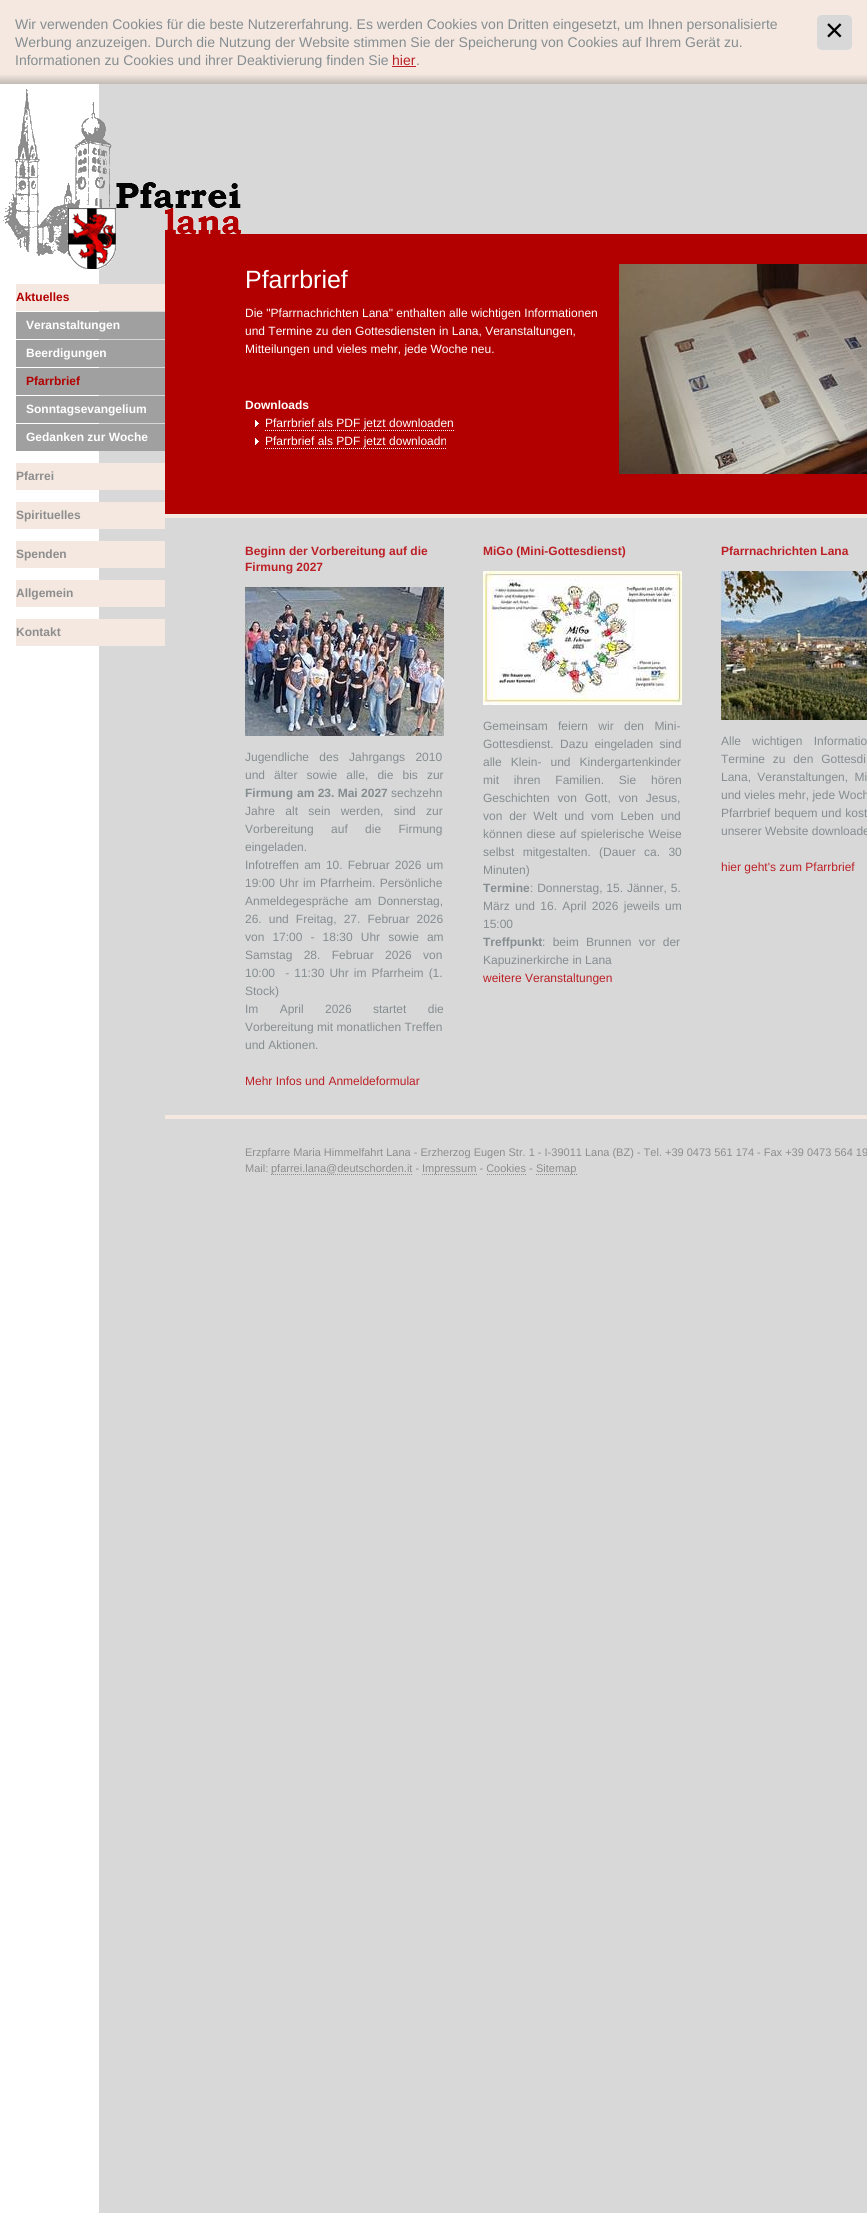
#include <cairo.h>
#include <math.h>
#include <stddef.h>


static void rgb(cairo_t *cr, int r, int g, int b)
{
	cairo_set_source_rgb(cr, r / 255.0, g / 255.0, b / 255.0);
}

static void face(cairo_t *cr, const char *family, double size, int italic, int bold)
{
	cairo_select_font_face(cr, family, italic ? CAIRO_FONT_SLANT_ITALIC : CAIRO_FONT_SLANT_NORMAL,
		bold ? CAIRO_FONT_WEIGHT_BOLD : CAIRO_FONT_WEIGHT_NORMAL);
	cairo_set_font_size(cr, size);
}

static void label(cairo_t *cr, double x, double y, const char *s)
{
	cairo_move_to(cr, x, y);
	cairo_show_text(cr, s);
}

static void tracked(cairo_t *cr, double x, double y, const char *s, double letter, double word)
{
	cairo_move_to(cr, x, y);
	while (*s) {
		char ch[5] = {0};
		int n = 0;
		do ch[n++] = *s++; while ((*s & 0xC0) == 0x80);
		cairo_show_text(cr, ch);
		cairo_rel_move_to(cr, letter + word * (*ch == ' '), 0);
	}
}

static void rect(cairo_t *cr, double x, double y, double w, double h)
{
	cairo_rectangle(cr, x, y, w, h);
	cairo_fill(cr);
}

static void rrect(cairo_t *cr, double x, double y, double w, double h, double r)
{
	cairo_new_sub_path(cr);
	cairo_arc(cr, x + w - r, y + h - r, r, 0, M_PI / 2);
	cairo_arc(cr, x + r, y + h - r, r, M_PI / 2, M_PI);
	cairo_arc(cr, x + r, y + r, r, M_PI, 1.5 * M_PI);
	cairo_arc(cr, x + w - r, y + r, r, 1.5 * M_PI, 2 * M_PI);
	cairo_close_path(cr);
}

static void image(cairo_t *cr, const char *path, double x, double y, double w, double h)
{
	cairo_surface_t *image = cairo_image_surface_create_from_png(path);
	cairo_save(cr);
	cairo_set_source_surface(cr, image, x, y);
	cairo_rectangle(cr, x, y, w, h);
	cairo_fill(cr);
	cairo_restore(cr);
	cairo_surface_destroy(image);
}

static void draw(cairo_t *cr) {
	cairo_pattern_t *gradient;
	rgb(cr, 255, 255, 255);
	cairo_paint(cr);
	rgb(cr, 216, 216, 216);
	rect(cr, 99, 84, 768, 2129);
	rgb(cr, 244, 232, 225);
	rect(cr, 0, 0, 867, 74);
	face(cr, "Liberation Sans", 14, 0, 0);
	rgb(cr, 133, 141, 144);
	label(cr, 15, 29, "Wir verwenden Cookies für die beste Nutzererfahrung. Es werden Cookies von Dritten eingesetzt, um Ihnen personalisierte");
	label(cr, 15, 47, "Werbung anzuzeigen. Durch die Nutzung der Website stimmen Sie der Speicherung von Cookies auf Ihrem Gerät zu.");
	label(cr, 15, 65, "Informationen zu Cookies und ihrer Deaktivierung finden Sie");
	rgb(cr, 188, 32, 38);
	label(cr, 392, 65, "hier");
	rect(cr, 392, 66, 24, 1);
	rgb(cr, 133, 141, 144);
	label(cr, 416, 65, ".");
	rgb(cr, 216, 216, 216);
	rrect(cr, 817, 15, 35, 35, 5);
	cairo_fill(cr);
	face(cr, "Liberation Sans", 32, 0, 0);
	rgb(cr, 0, 0, 0);
	label(cr, 825, 41, "×");
	gradient = cairo_pattern_create_linear(434, 74, 434, 84);
	cairo_pattern_add_color_stop_rgba(gradient, 0, 0.957, 0.91, 0.882, 1);
	cairo_pattern_add_color_stop_rgba(gradient, 1, 0.765, 0.729, 0.706, 1);
	cairo_set_source(cr, gradient);
	cairo_pattern_destroy(gradient);
	rect(cr, 0, 74, 867, 10);
	rgb(cr, 178, 0, 0);
	rect(cr, 165, 234, 702, 280);
	image(cr, "image0.png", 3, 89, 238, 180);
	rgb(cr, 244, 232, 225);
	rect(cr, 16, 284, 149, 27);
	face(cr, "Liberation Sans", 12, 0, 1);
	rgb(cr, 178, 0, 0);
	label(cr, 16, 301, "Aktuelles");
	rgb(cr, 160, 160, 160);
	rect(cr, 16, 312, 149, 27);
	rgb(cr, 255, 255, 255);
	label(cr, 26, 329, "Veranstaltungen");
	rgb(cr, 160, 160, 160);
	rect(cr, 16, 340, 149, 27);
	rgb(cr, 255, 255, 255);
	label(cr, 26, 357, "Beerdigungen");
	rgb(cr, 160, 160, 160);
	rect(cr, 16, 368, 149, 27);
	rgb(cr, 178, 0, 0);
	label(cr, 26, 385, "Pfarrbrief");
	rgb(cr, 160, 160, 160);
	rect(cr, 16, 396, 149, 27);
	rgb(cr, 255, 255, 255);
	label(cr, 26, 413, "Sonntagsevangelium");
	rgb(cr, 160, 160, 160);
	rect(cr, 16, 424, 149, 27);
	rgb(cr, 255, 255, 255);
	label(cr, 26, 441, "Gedanken zur Woche");
	rgb(cr, 244, 232, 225);
	rect(cr, 16, 463, 149, 27);
	rgb(cr, 141, 141, 141);
	label(cr, 16, 480, "Pfarrei");
	rgb(cr, 244, 232, 225);
	rect(cr, 16, 502, 149, 27);
	rgb(cr, 141, 141, 141);
	label(cr, 16, 519, "Spirituelles");
	rgb(cr, 244, 232, 225);
	rect(cr, 16, 541, 149, 27);
	rgb(cr, 141, 141, 141);
	label(cr, 16, 558, "Spenden");
	rgb(cr, 244, 232, 225);
	rect(cr, 16, 580, 149, 27);
	rgb(cr, 141, 141, 141);
	label(cr, 16, 597, "Allgemein");
	rgb(cr, 244, 232, 225);
	rect(cr, 16, 619, 149, 27);
	rgb(cr, 141, 141, 141);
	label(cr, 16, 636, "Kontakt");
	rgb(cr, 244, 232, 225);
	rect(cr, 165, 514, 702, 4);
	face(cr, "Liberation Sans", 25, 0, 0);
	rgb(cr, 255, 255, 255);
	label(cr, 245, 288, "Pfarrbrief");
	image(cr, "image1.png", 619, 264, 248, 210);
	face(cr, "Liberation Sans", 12, 0, 0);
	label(cr, 245, 317, "Die \"Pfarrnachrichten Lana\" enthalten alle wichtigen Informationen");
	label(cr, 245, 335, "und Termine zu den Gottesdiensten in Lana, Veranstaltungen,");
	label(cr, 245, 353, "Mitteilungen und vieles mehr, jede Woche neu.");
	face(cr, "Liberation Sans", 12, 0, 1);
	label(cr, 245, 409, "Downloads");
	image(cr, "image2.png", 255, 420, 4, 7);
	face(cr, "Liberation Sans", 12, 0, 0);
	label(cr, 265, 427, "Pfarrbrief als PDF jetzt downloaden");
	cairo_new_path(cr);
	cairo_move_to(cr, 265, 430.5);
	cairo_line_to(cr, 454, 430.5);
	cairo_set_line_width(cr, 1);
	cairo_set_dash(cr, (double[]){1, 1}, 2, 0);
	cairo_stroke(cr);
	image(cr, "image2.png", 255, 438, 4, 7);
	label(cr, 265, 445, "Pfarrbrief als PDF jetzt downloadn");
	cairo_new_path(cr);
	cairo_move_to(cr, 265, 448.5);
	cairo_line_to(cr, 447, 448.5);
	cairo_stroke(cr);
	face(cr, "Liberation Sans", 12, 0, 1);
	rgb(cr, 188, 32, 38);
	label(cr, 245, 555, "Beginn der Vorbereitung auf die");
	label(cr, 245, 571, "Firmung 2027");
	image(cr, "image3.png", 245, 587, 199, 149);
	face(cr, "Liberation Sans", 12, 0, 0);
	rgb(cr, 133, 141, 144);
	tracked(cr, 245, 761, "Jugendliche des Jahrgangs 2010", 0, 7);
	tracked(cr, 245, 779, "und älter sowie alle, die bis zur", 0, 5.75);
	face(cr, "Liberation Sans", 12, 0, 1);
	label(cr, 245, 797, "Firmung");
	label(cr, 297, 797, "am 23. Mai 2027");
	face(cr, "Liberation Sans", 12, 0, 0);
	label(cr, 391, 797, "sechzehn");
	tracked(cr, 245, 815, "Jahre alt sein werden, sind zur", 0, 7);
	tracked(cr, 245, 833, "Vorbereitung auf die Firmung", 0, 14);
	label(cr, 245, 851, "eingeladen.");
	tracked(cr, 245, 869, "Infotreffen am 10. Februar 2026 um", 0, 1.75);
	tracked(cr, 245, 887, "19:00 Uhr im Pfarrheim. Persönliche", 0, 1);
	tracked(cr, 245, 905, "Anmeldegespräche am Donnerstag,", 0, 3);
	tracked(cr, 245, 923, "26. und Freitag, 27. Februar 2026", 0, 3.75);
	tracked(cr, 245, 941, "von 17:00 - 18:30 Uhr sowie am", 0, 4.75);
	tracked(cr, 245, 959, "Samstag 28. Februar 2026 von", 0, 8);
	tracked(cr, 245, 977, "10:00  - 11:30 Uhr im Pfarrheim (1.", 0, 1.75);
	label(cr, 245, 995, "Stock)");
	tracked(cr, 245, 1013, "Im April 2026 startet die", 0, 18);
	label(cr, 245, 1031, "Vorbereitung mit monatlichen Treffen");
	label(cr, 245, 1049, "und Aktionen.");
	rgb(cr, 188, 32, 38);
	label(cr, 245, 1085, "Mehr Infos und Anmeldeformular");
	face(cr, "Liberation Sans", 12, 0, 1);
	label(cr, 483, 555, "MiGo (Mini-Gottesdienst)");
	image(cr, "image4.png", 483, 571, 199, 134);
	face(cr, "Liberation Sans", 12, 0, 0);
	rgb(cr, 133, 141, 144);
	tracked(cr, 483, 730, "Gemeinsam feiern wir den Mini-", 0, 7);
	tracked(cr, 483, 748, "Gottesdienst. Dazu eingeladen sind", 0, 3);
	tracked(cr, 483, 766, "alle Klein- und Kindergartenkinder", 0, 5.75);
	tracked(cr, 483, 784, "mit ihren Familien. Sie hören", 0, 11.5);
	tracked(cr, 483, 802, "Geschichten von Gott, von Jesus,", 0, 4.5);
	tracked(cr, 483, 820, "von der Welt und vom Leben und", 0, 3.5);
	tracked(cr, 483, 838, "können diese auf spielerische Weise", 0, 1);
	tracked(cr, 483, 856, "selbst mitgestalten. (Dauer ca. 30", 0, 5);
	label(cr, 483, 874, "Minuten)");
	face(cr, "Liberation Sans", 12, 0, 1);
	label(cr, 483, 892, "Termine");
	face(cr, "Liberation Sans", 12, 0, 0);
	tracked(cr, 530, 892, ": Donnerstag, 15. Jänner, 5.", 0, 0.5);
	tracked(cr, 483, 910, "März und 16. April 2026 jeweils um", 0, 2);
	label(cr, 483, 928, "15:00");
	face(cr, "Liberation Sans", 12, 0, 1);
	label(cr, 483, 946, "Treffpunkt");
	face(cr, "Liberation Sans", 12, 0, 0);
	tracked(cr, 542, 946, ": beim Brunnen vor der", 0, 4);
	label(cr, 483, 964, "Kapuzinerkirche in Lana");
	rgb(cr, 188, 32, 38);
	label(cr, 483, 982, "weitere Veranstaltungen");
	face(cr, "Liberation Sans", 12, 0, 1);
	label(cr, 721, 555, "Pfarrnachrichten Lana");
	image(cr, "image5.png", 721, 571, 146, 149);
	face(cr, "Liberation Sans", 12, 0, 0);
	rgb(cr, 133, 141, 144);
	tracked(cr, 721, 745, "Alle wichtigen Informatio", 0, 8);
	tracked(cr, 721, 763, "Termine zu den Gottesdi", 0, 4.5);
	tracked(cr, 721, 781, "Lana, Veranstaltungen, Mi", 0, 3);
	label(cr, 721, 799, "und vieles mehr, jede Woch");
	tracked(cr, 721, 817, "Pfarrbrief bequem und kost", 0, 0.5);
	label(cr, 721, 835, "unserer Website downloade");
	rgb(cr, 188, 32, 38);
	label(cr, 721, 871, "hier geht's zum Pfarrbrief");
	rgb(cr, 244, 232, 225);
	rect(cr, 165, 1115, 702, 4);
	face(cr, "Liberation Sans", 11, 0, 0);
	rgb(cr, 141, 141, 141);
	label(cr, 245, 1156, "Erzpfarre Maria Himmelfahrt Lana - Erzherzog Eugen Str. 1 - I-39011 Lana (BZ) - Tel. +39 0473 561 174 - Fax +39 0473 564 19");
	label(cr, 245, 1172, "Mail:");
	cairo_new_path(cr);
	cairo_move_to(cr, 271, 1174.5);
	cairo_line_to(cr, 413, 1174.5);
	cairo_stroke(cr);
	label(cr, 271, 1172, "pfarrei.lana@deutschorden.it -");
	cairo_new_path(cr);
	cairo_move_to(cr, 422, 1174.5);
	cairo_line_to(cr, 477, 1174.5);
	cairo_stroke(cr);
	label(cr, 422, 1172, "Impressum - Cookies -");
	cairo_new_path(cr);
	cairo_move_to(cr, 536, 1174.5);
	cairo_line_to(cr, 577, 1174.5);
	cairo_stroke(cr);
	label(cr, 536, 1172, "Sitemap");
	cairo_new_path(cr);
	cairo_move_to(cr, 487, 1174.5);
	cairo_line_to(cr, 526, 1174.5);
	cairo_stroke(cr);
}

int main(void) {
	cairo_surface_t *surface = cairo_image_surface_create(CAIRO_FORMAT_RGB24, 867, 2213);
	cairo_t *cr = cairo_create(surface);
	cairo_font_options_t *options = cairo_font_options_create();
	cairo_font_options_set_hint_metrics(options, CAIRO_HINT_METRICS_OFF);
	cairo_font_options_set_hint_style(options, CAIRO_HINT_STYLE_NONE);
	cairo_set_font_options(cr, options);
	cairo_set_miter_limit(cr, 4);
	draw(cr);
	cairo_surface_write_to_png(surface, "render.png");
	cairo_font_options_destroy(options);
	cairo_destroy(cr);
	cairo_surface_destroy(surface);
	return 0;
}
